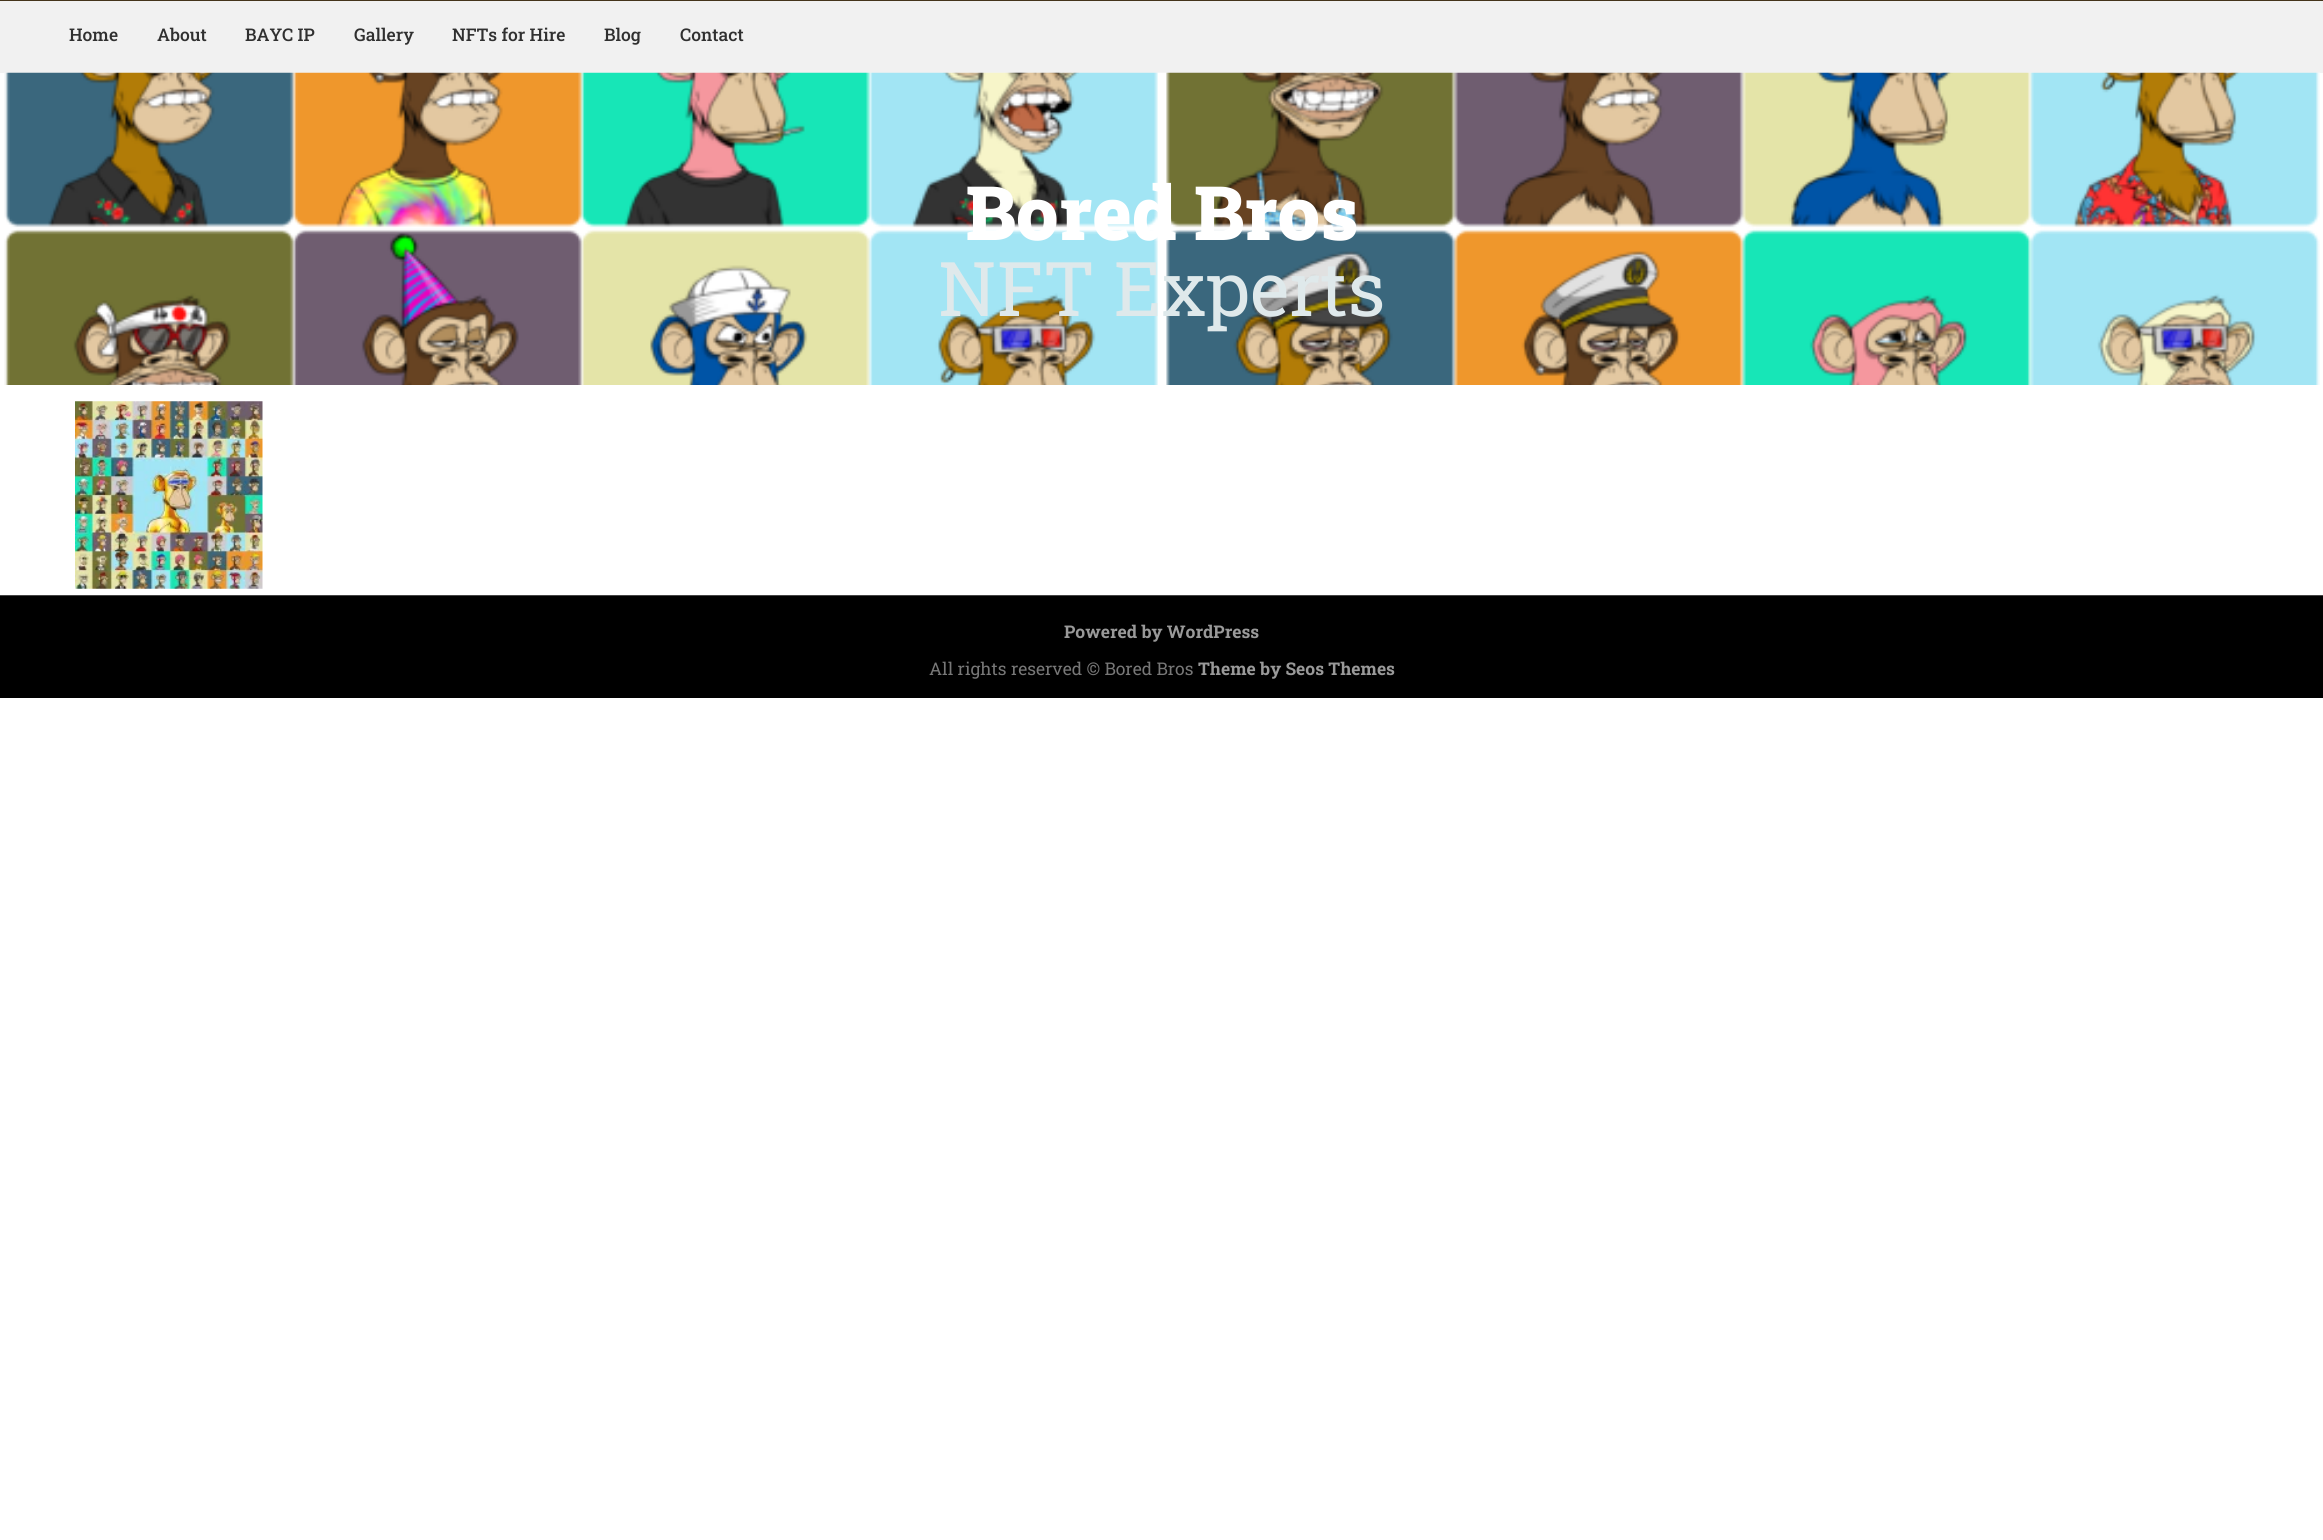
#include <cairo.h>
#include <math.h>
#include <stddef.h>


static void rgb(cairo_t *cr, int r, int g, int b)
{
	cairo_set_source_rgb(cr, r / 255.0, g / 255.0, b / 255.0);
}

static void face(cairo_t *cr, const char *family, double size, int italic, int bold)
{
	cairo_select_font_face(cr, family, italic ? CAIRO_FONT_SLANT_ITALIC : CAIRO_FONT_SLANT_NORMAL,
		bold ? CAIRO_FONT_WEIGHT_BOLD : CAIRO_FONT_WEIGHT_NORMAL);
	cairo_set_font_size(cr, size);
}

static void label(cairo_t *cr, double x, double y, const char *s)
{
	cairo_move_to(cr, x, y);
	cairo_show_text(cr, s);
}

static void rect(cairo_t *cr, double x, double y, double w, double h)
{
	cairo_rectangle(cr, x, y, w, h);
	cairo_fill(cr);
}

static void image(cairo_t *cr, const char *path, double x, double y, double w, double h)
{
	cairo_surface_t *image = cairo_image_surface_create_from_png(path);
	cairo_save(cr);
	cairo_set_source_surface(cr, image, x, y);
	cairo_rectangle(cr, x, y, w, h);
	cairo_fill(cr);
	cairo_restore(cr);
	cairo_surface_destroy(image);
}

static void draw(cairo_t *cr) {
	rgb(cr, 255, 255, 255);
	cairo_paint(cr);
	rgb(cr, 68, 52, 27);
	rect(cr, 0, 0, 2323, 1);
	rgb(cr, 241, 241, 241);
	rect(cr, 0, 1, 2323, 72);
	face(cr, "Roboto Slab Medium", 17.5, 0, 0);
	rgb(cr, 48, 48, 48);
	label(cr, 69, 41, "Home");
	label(cr, 157, 41, "About");
	label(cr, 245, 41, "BAYC IP");
	label(cr, 354, 41, "Gallery");
	label(cr, 452, 41, "NFTs for Hire");
	label(cr, 604, 41, "Blog");
	label(cr, 680, 41, "Contact");
	image(cr, "image0.png", 4, 72, 2316, 313);
	face(cr, "Roboto Slab Black", 75, 0, 0);
	rgb(cr, 255, 255, 255);
	label(cr, 966, 240, "Bored Bros");
	face(cr, "Roboto Slab", 75.5, 0, 0);
	rgb(cr, 223, 233, 235);
	label(cr, 938, 316, "NFT Experts");
	image(cr, "image1.png", 75, 401, 188, 188);
	rgb(cr, 68, 68, 68);
	rect(cr, 0, 595, 2323, 1);
	rgb(cr, 0, 0, 0);
	rect(cr, 0, 596, 2323, 102);
	face(cr, "Roboto Slab", 17.5, 0, 1);
	rgb(cr, 153, 153, 153);
	label(cr, 1064, 638, "Powered by WordPress");
	face(cr, "Roboto Slab", 17.5, 0, 0);
	rgb(cr, 119, 119, 119);
	label(cr, 929, 675, "All rights reserved © Bored Bros");
	face(cr, "Roboto Slab", 17.5, 0, 1);
	rgb(cr, 153, 153, 153);
	label(cr, 1198, 675, "Theme by Seos Themes");
}

int main(void) {
	cairo_surface_t *surface = cairo_image_surface_create(CAIRO_FORMAT_RGB24, 2323, 1540);
	cairo_t *cr = cairo_create(surface);
	cairo_font_options_t *options = cairo_font_options_create();
	cairo_font_options_set_hint_metrics(options, CAIRO_HINT_METRICS_OFF);
	cairo_font_options_set_hint_style(options, CAIRO_HINT_STYLE_NONE);
	cairo_set_font_options(cr, options);
	cairo_set_miter_limit(cr, 4);
	draw(cr);
	cairo_surface_write_to_png(surface, "render.png");
	cairo_font_options_destroy(options);
	cairo_destroy(cr);
	cairo_surface_destroy(surface);
	return 0;
}
